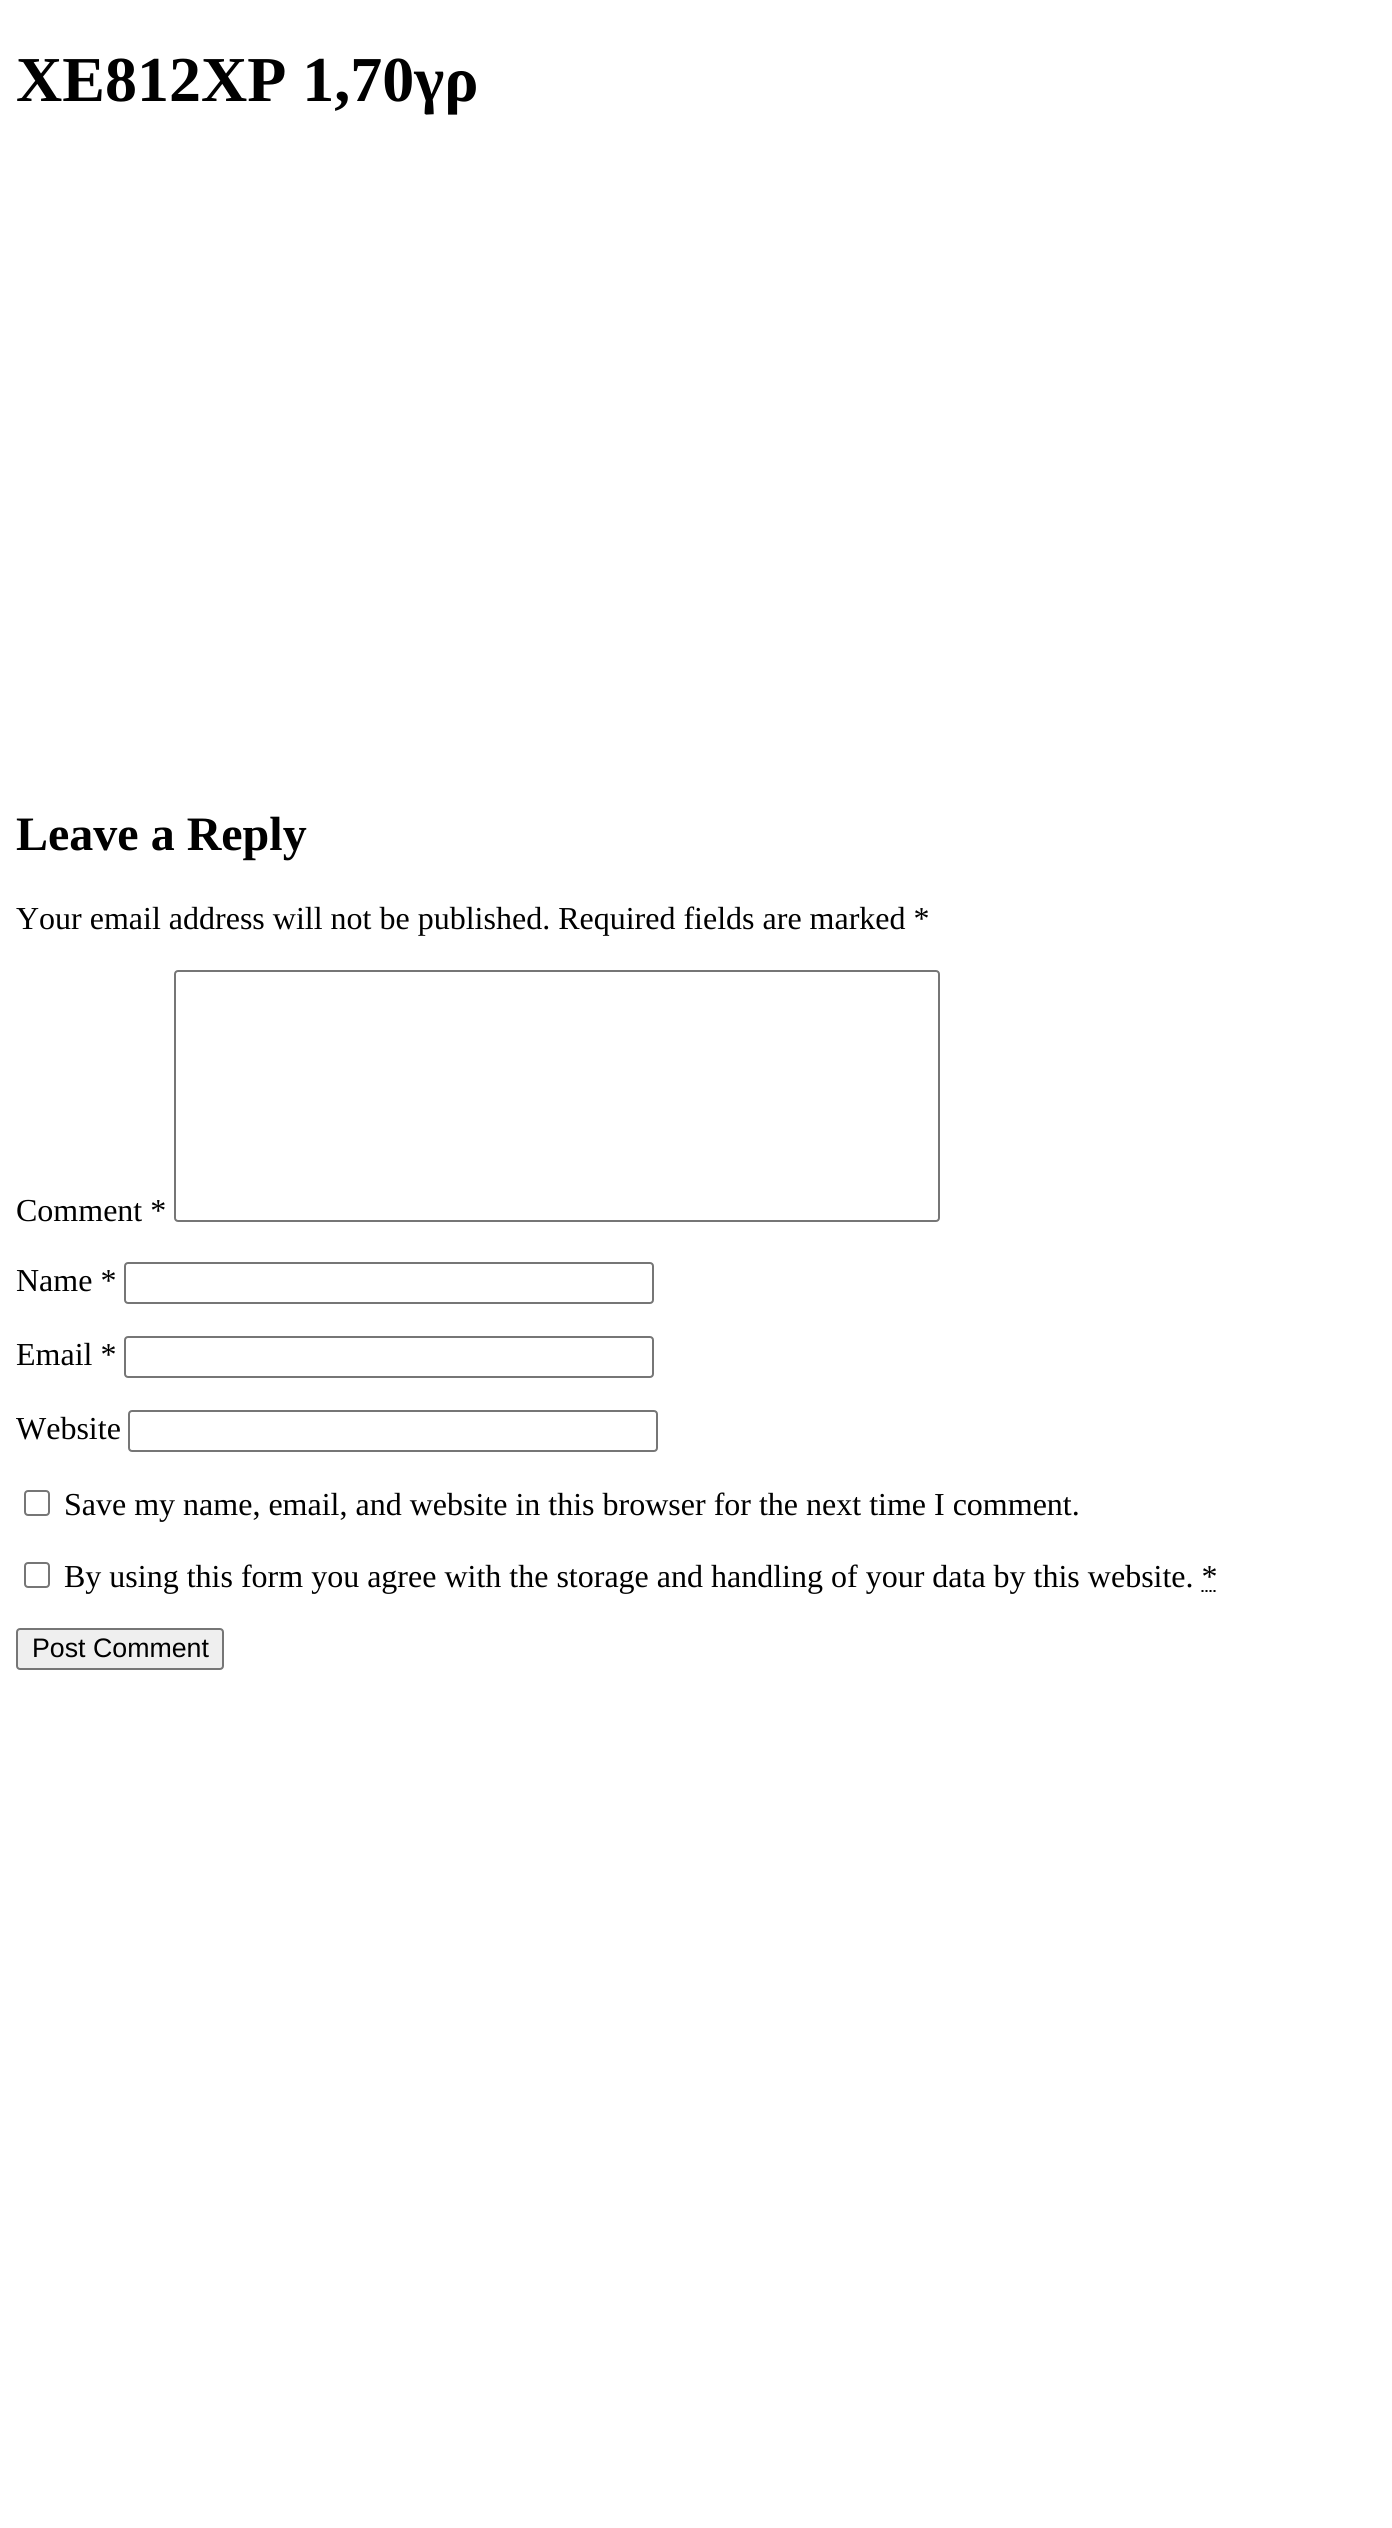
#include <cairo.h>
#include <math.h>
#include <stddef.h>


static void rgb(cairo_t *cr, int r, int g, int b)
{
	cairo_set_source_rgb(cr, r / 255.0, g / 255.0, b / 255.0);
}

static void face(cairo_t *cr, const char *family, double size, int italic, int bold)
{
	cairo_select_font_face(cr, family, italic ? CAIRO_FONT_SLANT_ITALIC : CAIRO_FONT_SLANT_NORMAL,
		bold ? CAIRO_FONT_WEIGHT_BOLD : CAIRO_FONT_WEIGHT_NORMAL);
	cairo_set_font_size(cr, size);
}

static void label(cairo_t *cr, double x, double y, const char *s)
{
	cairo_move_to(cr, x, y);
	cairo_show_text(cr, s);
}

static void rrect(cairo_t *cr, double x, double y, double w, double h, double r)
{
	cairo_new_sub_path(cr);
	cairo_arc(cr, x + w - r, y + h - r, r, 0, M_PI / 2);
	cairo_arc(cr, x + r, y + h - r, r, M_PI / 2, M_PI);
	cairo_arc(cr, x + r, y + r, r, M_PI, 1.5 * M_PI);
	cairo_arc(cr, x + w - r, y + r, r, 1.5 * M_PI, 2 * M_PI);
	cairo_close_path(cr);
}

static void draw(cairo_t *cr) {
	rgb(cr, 255, 255, 255);
	cairo_paint(cr);
	face(cr, "Liberation Serif", 64, 0, 1);
	rgb(cr, 0, 0, 0);
	label(cr, 16, 101, "ΧΕ812ΧΡ 1,70γρ");
	face(cr, "Liberation Serif", 48, 0, 1);
	label(cr, 16, 850, "Leave a Reply");
	face(cr, "Liberation Serif", 32, 0, 0);
	label(cr, 16, 929, "Your email address will not be published. Required fields are marked *");
	label(cr, 16, 1221, "Comment *");
	rrect(cr, 175, 971, 764, 250, 3);
	rgb(cr, 118, 118, 118);
	cairo_stroke(cr);
	rgb(cr, 0, 0, 0);
	label(cr, 16, 1291, "Name *");
	rrect(cr, 125, 1263, 528, 40, 3);
	rgb(cr, 118, 118, 118);
	cairo_stroke(cr);
	rgb(cr, 0, 0, 0);
	label(cr, 16, 1365, "Email *");
	rrect(cr, 125, 1337, 528, 40, 3);
	rgb(cr, 118, 118, 118);
	cairo_stroke(cr);
	rgb(cr, 0, 0, 0);
	label(cr, 16, 1439, "Website");
	rrect(cr, 129, 1411, 528, 40, 3);
	rgb(cr, 118, 118, 118);
	cairo_stroke(cr);
	rrect(cr, 25, 1491, 24, 24, 3);
	cairo_stroke(cr);
	rgb(cr, 0, 0, 0);
	label(cr, 64, 1515, "Save my name, email, and website in this browser for the next time I comment.");
	rrect(cr, 25, 1563, 24, 24, 3);
	rgb(cr, 118, 118, 118);
	cairo_stroke(cr);
	rgb(cr, 0, 0, 0);
	label(cr, 64, 1587, "By using this form you agree with the storage and handling of your data by this website. *");
	cairo_new_path(cr);
	cairo_move_to(cr, 1201.5, 1591);
	cairo_line_to(cr, 1217.5, 1591);
	cairo_set_dash(cr, (double[]){2, 2}, 2, 0);
	cairo_stroke(cr);
	rgb(cr, 239, 239, 239);
	rrect(cr, 17, 1629, 206, 40, 3);
	cairo_fill_preserve(cr);
	rgb(cr, 118, 118, 118);
	cairo_set_dash(cr, NULL, 0, 0);
	cairo_stroke(cr);
	face(cr, "Liberation Sans", 26.75, 0, 0);
	rgb(cr, 0, 0, 0);
	label(cr, 32, 1657, "Post Comment");
}

int main(void) {
	cairo_surface_t *surface = cairo_image_surface_create(CAIRO_FORMAT_RGB24, 1392, 2528);
	cairo_t *cr = cairo_create(surface);
	cairo_font_options_t *options = cairo_font_options_create();
	cairo_font_options_set_hint_metrics(options, CAIRO_HINT_METRICS_OFF);
	cairo_font_options_set_hint_style(options, CAIRO_HINT_STYLE_NONE);
	cairo_set_font_options(cr, options);
	cairo_set_miter_limit(cr, 4);
	draw(cr);
	cairo_surface_write_to_png(surface, "render.png");
	cairo_font_options_destroy(options);
	cairo_destroy(cr);
	cairo_surface_destroy(surface);
	return 0;
}
